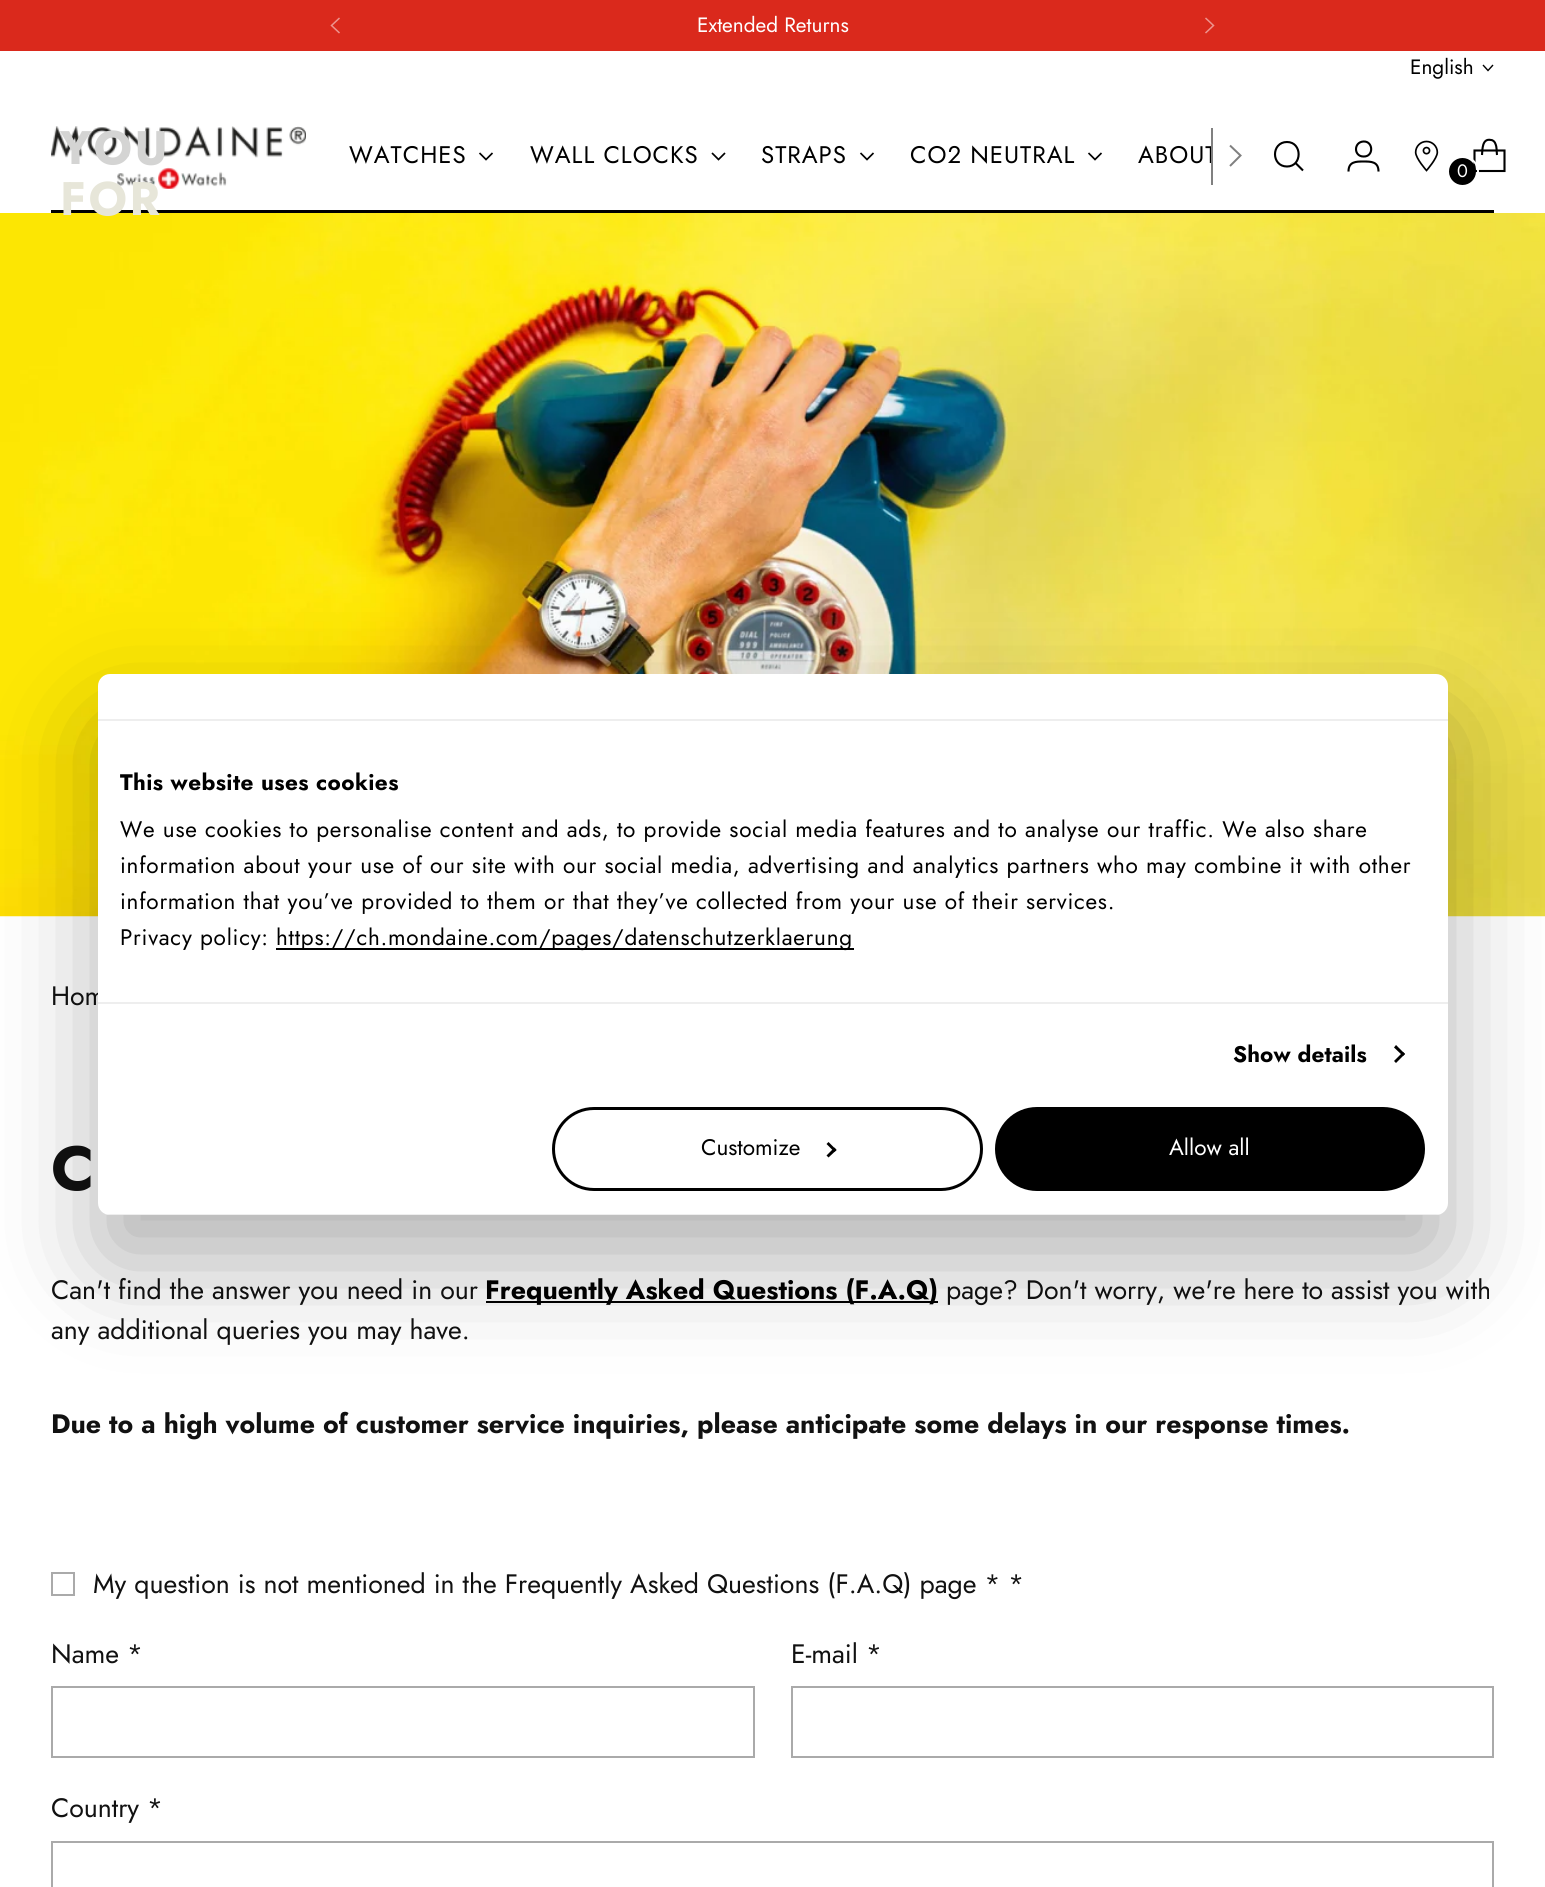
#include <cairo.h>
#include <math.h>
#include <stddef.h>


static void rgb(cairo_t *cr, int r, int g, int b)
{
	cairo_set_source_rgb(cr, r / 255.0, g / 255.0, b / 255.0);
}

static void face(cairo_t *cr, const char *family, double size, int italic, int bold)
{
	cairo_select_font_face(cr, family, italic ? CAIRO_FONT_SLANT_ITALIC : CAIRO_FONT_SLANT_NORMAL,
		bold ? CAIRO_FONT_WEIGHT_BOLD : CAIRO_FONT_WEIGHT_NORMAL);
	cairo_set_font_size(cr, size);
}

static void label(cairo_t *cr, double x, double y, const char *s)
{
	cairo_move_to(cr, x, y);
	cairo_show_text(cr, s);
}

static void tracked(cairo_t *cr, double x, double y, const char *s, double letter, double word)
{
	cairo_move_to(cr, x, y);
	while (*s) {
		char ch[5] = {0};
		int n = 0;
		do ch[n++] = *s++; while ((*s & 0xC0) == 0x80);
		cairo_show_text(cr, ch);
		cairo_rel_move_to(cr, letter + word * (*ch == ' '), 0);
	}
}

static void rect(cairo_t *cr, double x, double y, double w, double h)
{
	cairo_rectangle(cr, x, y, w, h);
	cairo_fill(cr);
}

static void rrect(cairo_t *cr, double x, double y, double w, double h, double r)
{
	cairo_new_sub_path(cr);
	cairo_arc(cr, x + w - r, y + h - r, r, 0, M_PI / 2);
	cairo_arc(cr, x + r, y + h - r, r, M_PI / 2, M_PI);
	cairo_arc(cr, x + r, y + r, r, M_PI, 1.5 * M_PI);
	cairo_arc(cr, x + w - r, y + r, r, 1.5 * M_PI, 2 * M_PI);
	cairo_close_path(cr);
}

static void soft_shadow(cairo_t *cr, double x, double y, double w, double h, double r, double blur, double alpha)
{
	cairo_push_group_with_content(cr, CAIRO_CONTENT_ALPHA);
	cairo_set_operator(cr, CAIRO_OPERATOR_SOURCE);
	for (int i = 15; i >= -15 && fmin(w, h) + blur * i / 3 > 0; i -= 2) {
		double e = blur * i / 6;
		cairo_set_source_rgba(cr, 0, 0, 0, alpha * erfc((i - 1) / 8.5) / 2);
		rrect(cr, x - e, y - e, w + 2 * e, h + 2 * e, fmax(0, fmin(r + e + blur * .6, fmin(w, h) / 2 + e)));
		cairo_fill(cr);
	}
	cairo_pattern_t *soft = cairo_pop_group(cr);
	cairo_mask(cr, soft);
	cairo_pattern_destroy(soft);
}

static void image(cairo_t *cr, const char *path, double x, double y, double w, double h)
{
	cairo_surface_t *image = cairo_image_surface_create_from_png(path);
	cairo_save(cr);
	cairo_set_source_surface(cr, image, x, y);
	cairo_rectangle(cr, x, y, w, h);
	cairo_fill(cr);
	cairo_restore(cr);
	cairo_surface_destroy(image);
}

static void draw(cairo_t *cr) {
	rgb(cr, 255, 255, 255);
	cairo_paint(cr);
	rgb(cr, 218, 41, 28);
	rect(cr, 0, 0, 1545, 51);
	face(cr, "Jost", 20.75, 0, 0);
	rgb(cr, 255, 255, 255);
	label(cr, 697, 32, "Extended Returns");
	cairo_new_path(cr);
	cairo_move_to(cr, 339.5, 18);
	cairo_line_to(cr, 331.5, 25.5);
	cairo_line_to(cr, 339.5, 33);
	rgb(cr, 237, 148, 142);
	cairo_set_line_width(cr, 1.5);
	cairo_stroke(cr);
	cairo_new_path(cr);
	cairo_move_to(cr, 1205.5, 33);
	cairo_line_to(cr, 1213.5, 25.5);
	cairo_line_to(cr, 1205.5, 18);
	cairo_stroke(cr);
	rgb(cr, 0, 0, 0);
	rect(cr, 51, 210, 1443, 3);
	label(cr, 1410, 74, "English");
	cairo_new_path(cr);
	cairo_move_to(cr, 1483, 65);
	cairo_line_to(cr, 1488, 70.5);
	cairo_line_to(cr, 1493, 65);
	cairo_set_line_width(cr, 1.4);
	cairo_stroke(cr);
	image(cr, "image0.png", 51, 126, 255, 63);
	face(cr, "Jost", 24, 0, 0);
	tracked(cr, 349, 163, "WATCHES", 1, 0);
	cairo_new_path(cr);
	cairo_move_to(cr, 479.5, 153);
	cairo_line_to(cr, 486, 159.5);
	cairo_line_to(cr, 492.5, 153);
	cairo_set_line_width(cr, 1.7);
	cairo_stroke(cr);
	tracked(cr, 530, 163, "WALL CLOCKS", 1, 0);
	cairo_new_path(cr);
	cairo_move_to(cr, 712, 153);
	cairo_line_to(cr, 718.5, 159.5);
	cairo_line_to(cr, 725, 153);
	cairo_stroke(cr);
	tracked(cr, 761, 163, "STRAPS", 1, 0);
	cairo_new_path(cr);
	cairo_move_to(cr, 860.5, 153);
	cairo_line_to(cr, 867, 159.5);
	cairo_line_to(cr, 873.5, 153);
	cairo_stroke(cr);
	tracked(cr, 910, 163, "CO2 NEUTRAL", 1, 0);
	cairo_new_path(cr);
	cairo_move_to(cr, 1088.5, 153);
	cairo_line_to(cr, 1095, 159.5);
	cairo_line_to(cr, 1101.5, 153);
	cairo_stroke(cr);
	cairo_save(cr);
	cairo_rectangle(cr, 348, 99, 863, 114);
	cairo_clip(cr);
	tracked(cr, 1138, 163, "ABOUT", 1, 0);
	cairo_restore(cr);
	rgb(cr, 128, 128, 128);
	rect(cr, 1211, 128, 2, 57);
	cairo_new_path(cr);
	cairo_move_to(cr, 1230, 166);
	cairo_line_to(cr, 1240.5, 155.5);
	cairo_line_to(cr, 1230, 145.5);
	cairo_set_line_width(cr, 2);
	cairo_stroke(cr);
	cairo_new_path(cr);
	cairo_move_to(cr, 1287, 166.5);
	cairo_curve_to(cr, 1302.5, 166.5, 1302.5, 142, 1287, 142);
	cairo_curve_to(cr, 1271, 142, 1271, 166.5, 1287, 166.5);
	cairo_close_path(cr);
	rgb(cr, 0, 0, 0);
	cairo_set_line_width(cr, 2.1);
	cairo_set_line_cap(cr, CAIRO_LINE_CAP_ROUND);
	cairo_stroke(cr);
	cairo_new_path(cr);
	cairo_move_to(cr, 1295.5, 163);
	cairo_line_to(cr, 1303, 170.5);
	cairo_set_line_cap(cr, CAIRO_LINE_CAP_BUTT);
	cairo_stroke(cr);
	cairo_new_path(cr);
	cairo_move_to(cr, 1363.5, 156.5);
	cairo_curve_to(cr, 1374, 157, 1373.5, 141, 1363.5, 141.5);
	cairo_curve_to(cr, 1353.5, 142, 1353.5, 156.5, 1363.5, 156.5);
	cairo_close_path(cr);
	cairo_move_to(cr, 1348.5, 171.5);
	cairo_curve_to(cr, 1348.5, 161.5, 1356, 161.5, 1363.5, 161.5);
	cairo_curve_to(cr, 1371, 161.5, 1378.5, 161.5, 1378.5, 171.5);
	cairo_stroke(cr);
	image(cr, "image1.png", 1414, 140, 25, 32);
	cairo_new_path(cr);
	cairo_move_to(cr, 1497, 155);
	cairo_curve_to(cr, 1496.5, 151.5, 1497, 147.5, 1495.5, 144);
	cairo_curve_to(cr, 1495, 142, 1493, 140, 1491, 140);
	cairo_curve_to(cr, 1482, 138, 1482.5, 149.5, 1482, 155);
	cairo_set_line_join(cr, CAIRO_LINE_JOIN_BEVEL);
	cairo_stroke(cr);
	cairo_new_path(cr);
	cairo_move_to(cr, 1504.5, 171);
	cairo_line_to(cr, 1504.5, 150.5);
	cairo_line_to(cr, 1474.5, 150.5);
	cairo_line_to(cr, 1474.5, 171);
	cairo_close_path(cr);
	cairo_set_line_join(cr, CAIRO_LINE_JOIN_MITER);
	cairo_stroke(cr);
	rrect(cr, 1449, 157, 29, 30, 14.5);
	rgb(cr, 255, 255, 255);
	cairo_set_line_width(cr, 2);
	cairo_stroke(cr);
	rgb(cr, 0, 0, 0);
	cairo_arc(cr, 1462.5, 171.5, 13.5, 0, 2 * M_PI);
	cairo_fill(cr);
	face(cr, "Jost", 18, 0, 0);
	rgb(cr, 255, 255, 255);
	label(cr, 1457, 177, "0");
	image(cr, "image2.png", 0, 213, 1545, 704);
	face(cr, "Jost", 26.65, 0, 0);
	rgb(cr, 17, 17, 17);
	label(cr, 51, 1005, "Hom");
	face(cr, "Jost", 62, 0, 1);
	tracked(cr, 51, 1190, "C", 3, 0);
	face(cr, "Jost", 26.65, 0, 0);
	label(cr, 51, 1299, "Can't find the answer you need in our");
	rgb(cr, 0, 0, 0);
	rect(cr, 486, 1301, 452, 2);
	face(cr, "Jost", 26.65, 0, 1);
	label(cr, 485, 1299, "Frequently Asked Questions (F.A.Q)");
	face(cr, "Jost", 26.65, 0, 0);
	rgb(cr, 17, 17, 17);
	label(cr, 946, 1299, "page? Don't worry, we're here to assist you with");
	label(cr, 51, 1339, "any additional queries you may have.");
	face(cr, "Jost", 26.65, 0, 1);
	label(cr, 51, 1433, "Due to a high volume of customer service inquiries, please anticipate some delays in our response times.");
	cairo_rectangle(cr, 52, 1573, 22, 22);
	rgb(cr, 170, 170, 170);
	cairo_stroke(cr);
	face(cr, "Jost", 26.65, 0, 0);
	rgb(cr, 17, 17, 17);
	label(cr, 93, 1593, "My question is not mentioned in the Frequently Asked Questions (F.A.Q) page * *");
	label(cr, 51, 1663, "Name *");
	cairo_rectangle(cr, 52, 1687, 702, 70);
	rgb(cr, 170, 170, 170);
	cairo_stroke(cr);
	rgb(cr, 17, 17, 17);
	label(cr, 791, 1663, "E-mail *");
	cairo_rectangle(cr, 792, 1687, 701, 70);
	rgb(cr, 170, 170, 170);
	cairo_stroke(cr);
	rgb(cr, 17, 17, 17);
	label(cr, 51, 1817, "Country *");
	cairo_rectangle(cr, 52, 1842, 1441, 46);
	rgb(cr, 170, 170, 170);
	cairo_stroke(cr);
	face(cr, "Jost", 47, 0, 1);
	rgb(cr, 212, 212, 211);
	tracked(cr, 60, 164, "YOU", 2.5, 0);
	rgb(cr, 231, 230, 217);
	tracked(cr, 60, 215, "FOR", 2.5, 0);
	rgb(cr, 0, 0, 0);
	soft_shadow(cr, 98, 722, 1350, 541, 12, 51, 0.3);
	rgb(cr, 255, 255, 255);
	rrect(cr, 98, 674, 1350, 541, 12);
	cairo_fill(cr);
	rgb(cr, 238, 238, 238);
	rect(cr, 98, 719, 1350, 2);
	rect(cr, 98, 1002, 1350, 2);
	face(cr, "Jost", 22.5, 0, 1);
	rgb(cr, 0, 0, 0);
	tracked(cr, 120, 790, "This website uses cookies", 0.4, 0);
	face(cr, "Jost", 22.5, 0, 0);
	tracked(cr, 120, 837, "We use cookies to personalise content and ads, to provide social media features and to analyse our traffic. We also share", 0.75, 0);
	tracked(cr, 120, 873, "information about your use of our site with our social media, advertising and analytics partners who may combine it with other", 0.75, 0);
	tracked(cr, 120, 909, "information that you’ve provided to them or that they’ve collected from your use of their services.", 0.75, 0);
	tracked(cr, 120, 945, "Privacy policy:", 0.75, 0);
	rect(cr, 276, 948, 578, 2);
	tracked(cr, 276, 945, "https://ch.mondaine.com/pages/datenschutzerklaerung", 0.75, 0);
	face(cr, "Jost", 22.5, 0, 1);
	tracked(cr, 1233, 1062, "Show details", 0.1, 0);
	cairo_new_path(cr);
	cairo_move_to(cr, 1396, 1045);
	cairo_line_to(cr, 1405, 1054);
	cairo_line_to(cr, 1403, 1056);
	cairo_line_to(cr, 1394, 1047.5);
	cairo_close_path(cr);
	cairo_fill(cr);
	cairo_new_path(cr);
	cairo_move_to(cr, 1403, 1052);
	cairo_line_to(cr, 1405, 1054);
	cairo_line_to(cr, 1396, 1063);
	cairo_line_to(cr, 1394, 1061);
	cairo_close_path(cr);
	cairo_fill(cr);
	cairo_save(cr);
	rrect(cr, 98, 674, 1350, 541, 12);
	cairo_clip(cr);
	rgb(cr, 238, 238, 238);
	rect(cr, 98, 1214, 1350, 1);
	cairo_restore(cr);
	rrect(cr, 553.5, 1108.5, 428, 81, 40.5);
	cairo_set_line_width(cr, 3);
	cairo_stroke(cr);
	face(cr, "Jost", 22.5, 0, 0);
	label(cr, 701, 1155, "Customize");
	cairo_new_path(cr);
	cairo_move_to(cr, 828.5, 1142);
	cairo_line_to(cr, 836.5, 1150);
	cairo_line_to(cr, 834.5, 1152);
	cairo_line_to(cr, 826.5, 1144);
	cairo_close_path(cr);
	cairo_fill(cr);
	cairo_new_path(cr);
	cairo_move_to(cr, 834.5, 1147.5);
	cairo_line_to(cr, 836.5, 1150);
	cairo_line_to(cr, 828.5, 1157.5);
	cairo_line_to(cr, 826.5, 1155.5);
	cairo_close_path(cr);
	cairo_fill(cr);
	rrect(cr, 996.5, 1108.5, 427, 81, 40.5);
	cairo_fill_preserve(cr);
	cairo_stroke(cr);
	rgb(cr, 255, 255, 255);
	label(cr, 1169, 1155, "Allow all");
}

int main(void) {
	cairo_surface_t *surface = cairo_image_surface_create(CAIRO_FORMAT_RGB24, 1545, 1887);
	cairo_t *cr = cairo_create(surface);
	cairo_font_options_t *options = cairo_font_options_create();
	cairo_font_options_set_hint_metrics(options, CAIRO_HINT_METRICS_OFF);
	cairo_font_options_set_hint_style(options, CAIRO_HINT_STYLE_NONE);
	cairo_set_font_options(cr, options);
	cairo_set_miter_limit(cr, 4);
	draw(cr);
	cairo_surface_write_to_png(surface, "render.png");
	cairo_font_options_destroy(options);
	cairo_destroy(cr);
	cairo_surface_destroy(surface);
	return 0;
}
